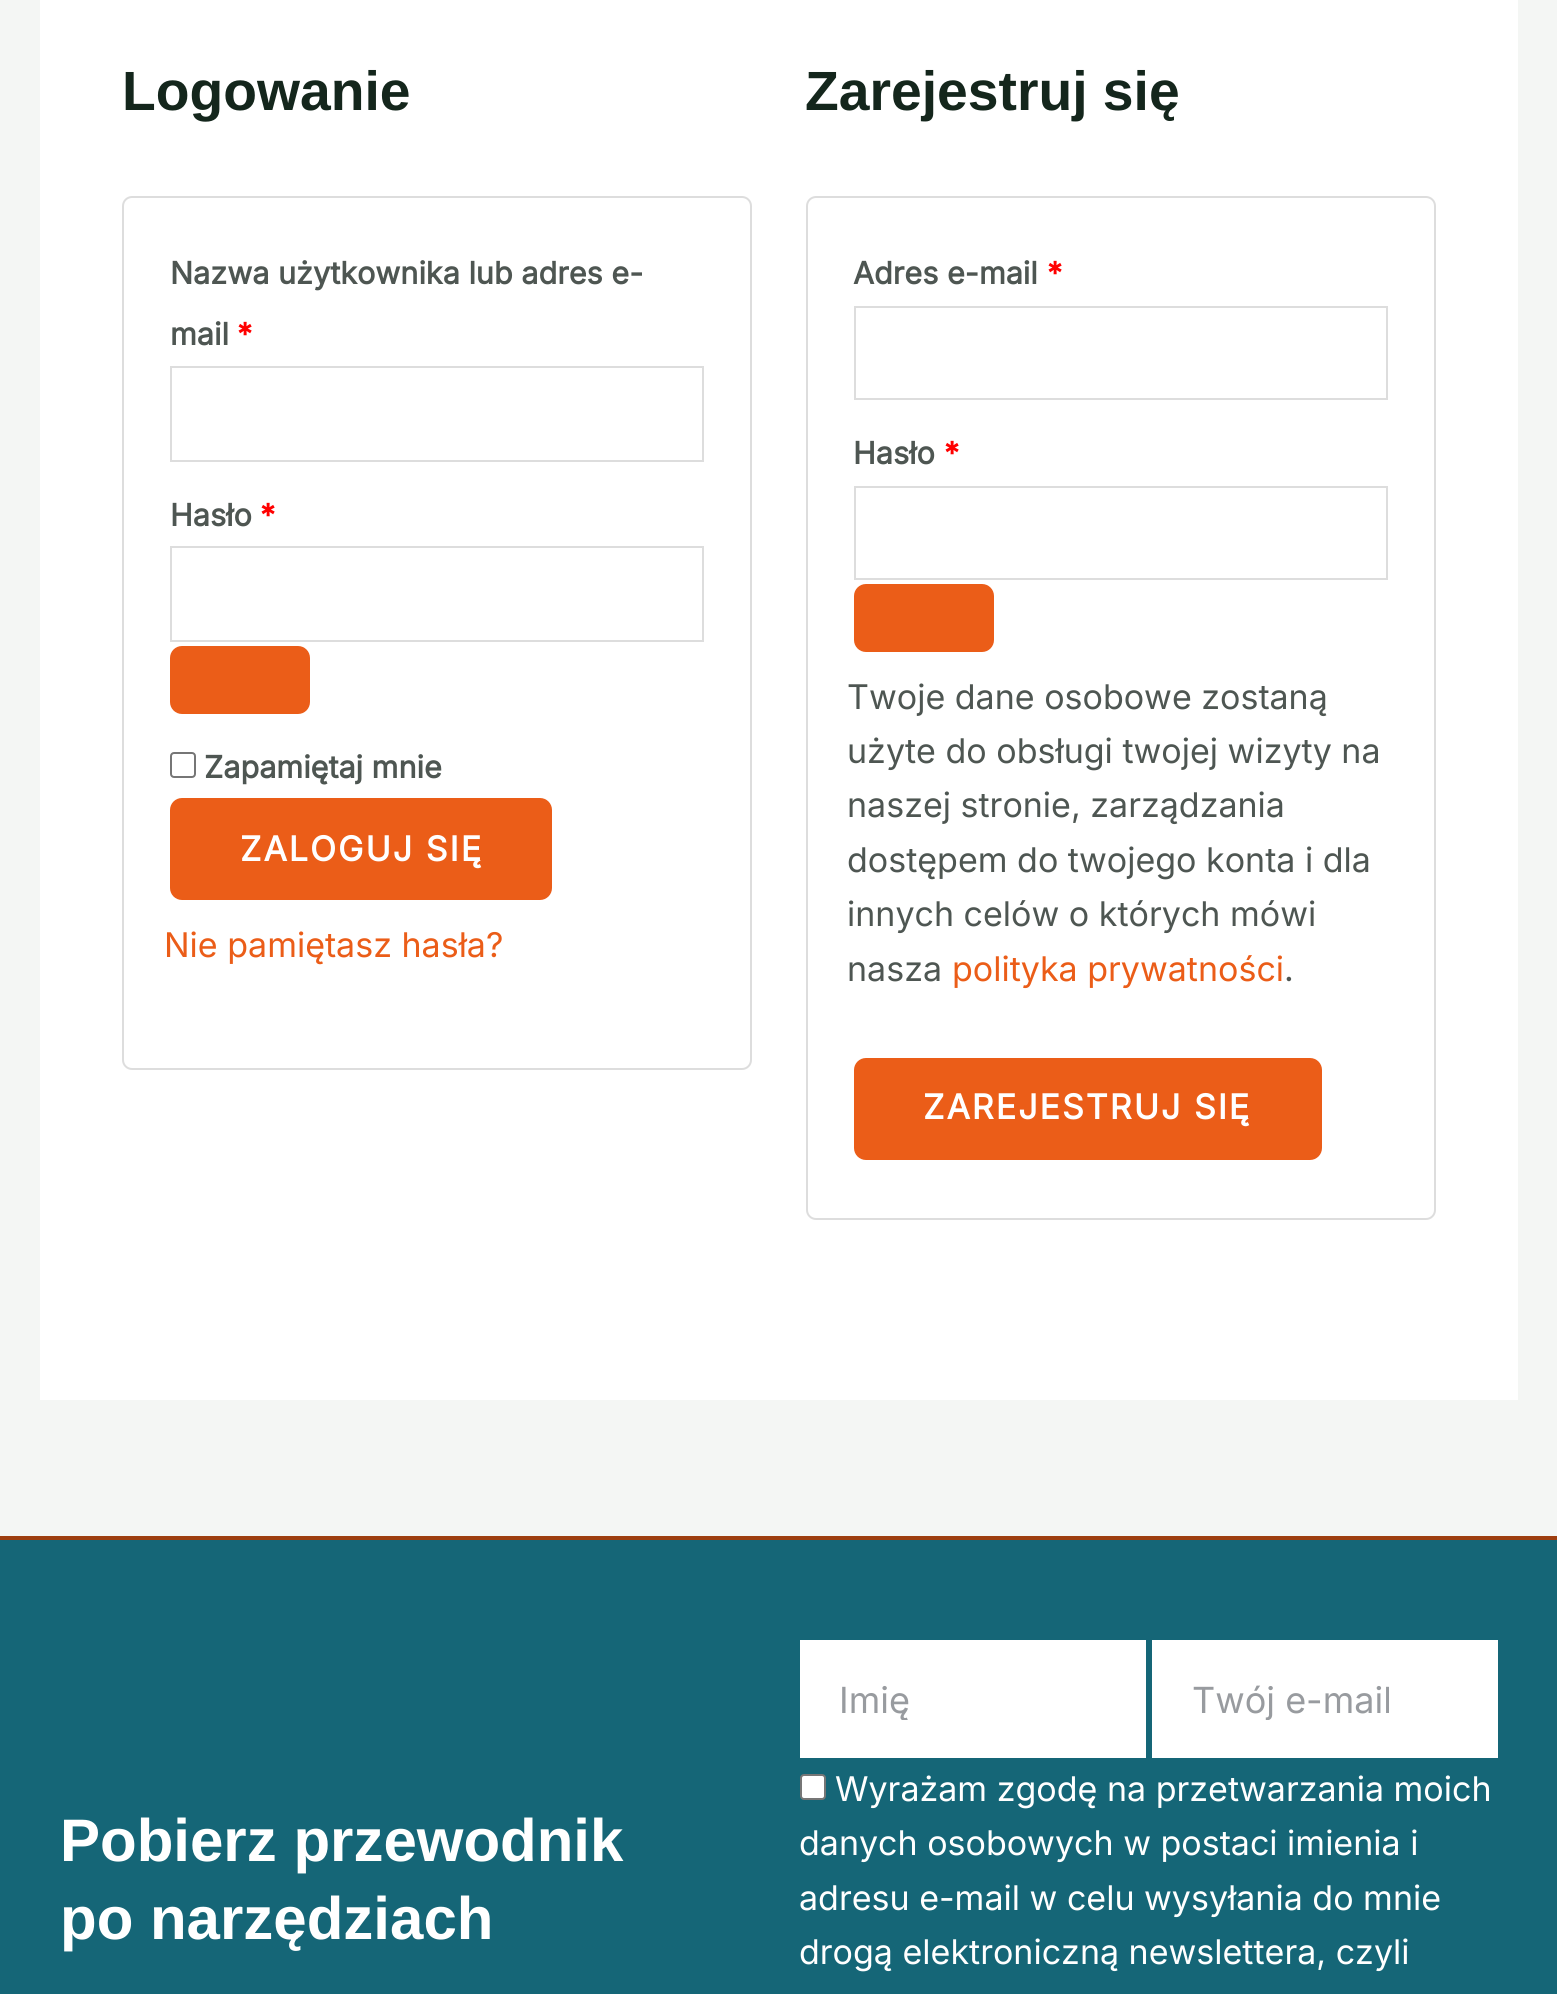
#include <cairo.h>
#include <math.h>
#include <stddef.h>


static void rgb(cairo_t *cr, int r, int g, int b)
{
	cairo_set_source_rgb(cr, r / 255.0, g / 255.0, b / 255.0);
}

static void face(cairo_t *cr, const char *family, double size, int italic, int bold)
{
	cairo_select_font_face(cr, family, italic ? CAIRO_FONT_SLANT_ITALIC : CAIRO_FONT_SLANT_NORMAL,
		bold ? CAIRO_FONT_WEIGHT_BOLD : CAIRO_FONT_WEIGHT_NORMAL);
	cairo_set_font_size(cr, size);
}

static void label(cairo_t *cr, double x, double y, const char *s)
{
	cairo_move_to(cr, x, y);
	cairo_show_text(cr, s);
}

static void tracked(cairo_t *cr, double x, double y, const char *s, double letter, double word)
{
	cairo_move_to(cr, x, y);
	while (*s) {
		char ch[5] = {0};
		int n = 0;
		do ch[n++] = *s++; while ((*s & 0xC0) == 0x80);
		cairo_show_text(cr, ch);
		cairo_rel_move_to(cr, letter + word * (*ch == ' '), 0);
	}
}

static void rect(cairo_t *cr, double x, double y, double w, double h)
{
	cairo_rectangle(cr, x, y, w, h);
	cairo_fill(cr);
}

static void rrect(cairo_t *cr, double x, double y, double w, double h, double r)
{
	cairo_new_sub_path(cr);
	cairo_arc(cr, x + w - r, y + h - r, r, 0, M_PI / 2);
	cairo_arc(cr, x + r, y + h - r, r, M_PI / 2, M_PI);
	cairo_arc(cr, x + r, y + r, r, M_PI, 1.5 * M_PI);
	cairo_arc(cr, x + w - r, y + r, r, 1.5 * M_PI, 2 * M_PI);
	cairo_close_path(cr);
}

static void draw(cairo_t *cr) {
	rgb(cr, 244, 246, 244);
	cairo_paint(cr);
	rgb(cr, 255, 255, 255);
	rect(cr, 40, 0, 1478, 1400);
	face(cr, "Liberation Sans", 55.25, 0, 1);
	rgb(cr, 20, 38, 28);
	label(cr, 122, 110, "Logowanie");
	rrect(cr, 123, 197, 628, 872, 9);
	rgb(cr, 221, 221, 221);
	cairo_stroke(cr);
	face(cr, "Inter", 30.6, 0, 1);
	rgb(cr, 78, 86, 82);
	label(cr, 170, 284, "Nazwa użytkownika lub adres e-");
	label(cr, 170, 345, "mail");
	rgb(cr, 255, 0, 0);
	label(cr, 237, 345, "*");
	cairo_rectangle(cr, 171, 367, 532, 94);
	rgb(cr, 221, 221, 221);
	cairo_stroke(cr);
	rgb(cr, 78, 86, 82);
	label(cr, 170, 526, "Hasło");
	rgb(cr, 255, 0, 0);
	label(cr, 260, 526, "*");
	cairo_rectangle(cr, 171, 547, 532, 94);
	rgb(cr, 221, 221, 221);
	cairo_stroke(cr);
	rgb(cr, 235, 93, 24);
	rrect(cr, 170, 646, 140, 68, 12);
	cairo_fill(cr);
	rrect(cr, 171, 753, 24, 24, 3);
	rgb(cr, 118, 118, 118);
	cairo_stroke(cr);
	rgb(cr, 78, 86, 82);
	label(cr, 204, 778, "Zapamiętaj mnie");
	rgb(cr, 235, 93, 24);
	rrect(cr, 170, 798, 382, 102, 12);
	cairo_fill(cr);
	face(cr, "Inter", 34, 0, 1);
	rgb(cr, 255, 255, 255);
	tracked(cr, 240, 861, "ZALOGUJ SIĘ", 2, 0);
	face(cr, "Inter", 34, 0, 0);
	rgb(cr, 235, 93, 24);
	label(cr, 164, 957, "Nie pamiętasz hasła?");
	face(cr, "Liberation Sans", 55.25, 0, 1);
	rgb(cr, 20, 38, 28);
	label(cr, 805, 110, "Zarejestruj się");
	rrect(cr, 807, 197, 628, 1022, 9);
	rgb(cr, 221, 221, 221);
	cairo_stroke(cr);
	face(cr, "Inter", 30.6, 0, 1);
	rgb(cr, 78, 86, 82);
	label(cr, 853, 284, "Adres e-mail");
	rgb(cr, 255, 0, 0);
	label(cr, 1047, 284, "*");
	cairo_rectangle(cr, 855, 307, 532, 92);
	rgb(cr, 221, 221, 221);
	cairo_stroke(cr);
	rgb(cr, 78, 86, 82);
	label(cr, 853, 464, "Hasło");
	rgb(cr, 255, 0, 0);
	label(cr, 944, 464, "*");
	cairo_rectangle(cr, 855, 487, 532, 92);
	rgb(cr, 221, 221, 221);
	cairo_stroke(cr);
	rgb(cr, 235, 93, 24);
	rrect(cr, 854, 584, 140, 68, 12);
	cairo_fill(cr);
	face(cr, "Inter", 34, 0, 0);
	rgb(cr, 78, 86, 82);
	label(cr, 847, 709, "Twoje dane osobowe zostaną");
	label(cr, 847, 763, "użyte do obsługi twojej wizyty na");
	label(cr, 847, 817, "naszej stronie, zarządzania");
	label(cr, 847, 872, "dostępem do twojego konta i dla");
	label(cr, 847, 926, "innych celów o których mówi");
	label(cr, 847, 981, "nasza");
	rgb(cr, 235, 93, 24);
	label(cr, 952, 981, "polityka prywatności");
	rgb(cr, 78, 86, 82);
	label(cr, 1284, 981, ".");
	rgb(cr, 235, 93, 24);
	rrect(cr, 854, 1058, 468, 102, 12);
	cairo_fill(cr);
	face(cr, "Inter", 34, 0, 1);
	rgb(cr, 255, 255, 255);
	tracked(cr, 923, 1119, "ZAREJESTRUJ SIĘ", 2, 0);
	rgb(cr, 21, 102, 119);
	rect(cr, 0, 1540, 1557, 454);
	rgb(cr, 157, 62, 16);
	rect(cr, 0, 1536, 1557, 4);
	face(cr, "Liberation Sans", 60, 0, 1);
	rgb(cr, 255, 255, 255);
	label(cr, 60, 1861, "Pobierz przewodnik");
	label(cr, 60, 1939, "po narzędziach");
	rect(cr, 800, 1640, 346, 118);
	cairo_save(cr);
	cairo_rectangle(cr, 840, 1678, 266, 42);
	cairo_clip(cr);
	face(cr, "Inter", 36, 0, 0);
	rgb(cr, 152, 155, 159);
	label(cr, 839, 1713, "Imię");
	cairo_restore(cr);
	rect(cr, 1152, 1640, 346, 118);
	cairo_save(cr);
	cairo_rectangle(cr, 1192, 1678, 266, 42);
	cairo_clip(cr);
	face(cr, "Inter", 36, 0, 0);
	rgb(cr, 152, 155, 159);
	label(cr, 1192, 1713, "Twój e-mail");
	cairo_restore(cr);
	rrect(cr, 801, 1775, 24, 24, 3);
	cairo_fill_preserve(cr);
	rgb(cr, 118, 118, 118);
	cairo_stroke(cr);
	face(cr, "Inter", 34, 0, 0);
	rgb(cr, 255, 255, 255);
	label(cr, 835, 1801, "Wyrażam zgodę na przetwarzania moich");
	label(cr, 799, 1855, "danych osobowych w postaci imienia i");
	label(cr, 799, 1910, "adresu e-mail w celu wysyłania do mnie");
	label(cr, 799, 1964, "drogą elektroniczną newslettera, czyli");
}

int main(void) {
	cairo_surface_t *surface = cairo_image_surface_create(CAIRO_FORMAT_RGB24, 1557, 1994);
	cairo_t *cr = cairo_create(surface);
	cairo_font_options_t *options = cairo_font_options_create();
	cairo_font_options_set_hint_metrics(options, CAIRO_HINT_METRICS_OFF);
	cairo_font_options_set_hint_style(options, CAIRO_HINT_STYLE_NONE);
	cairo_set_font_options(cr, options);
	cairo_set_miter_limit(cr, 4);
	draw(cr);
	cairo_surface_write_to_png(surface, "render.png");
	cairo_font_options_destroy(options);
	cairo_destroy(cr);
	cairo_surface_destroy(surface);
	return 0;
}
